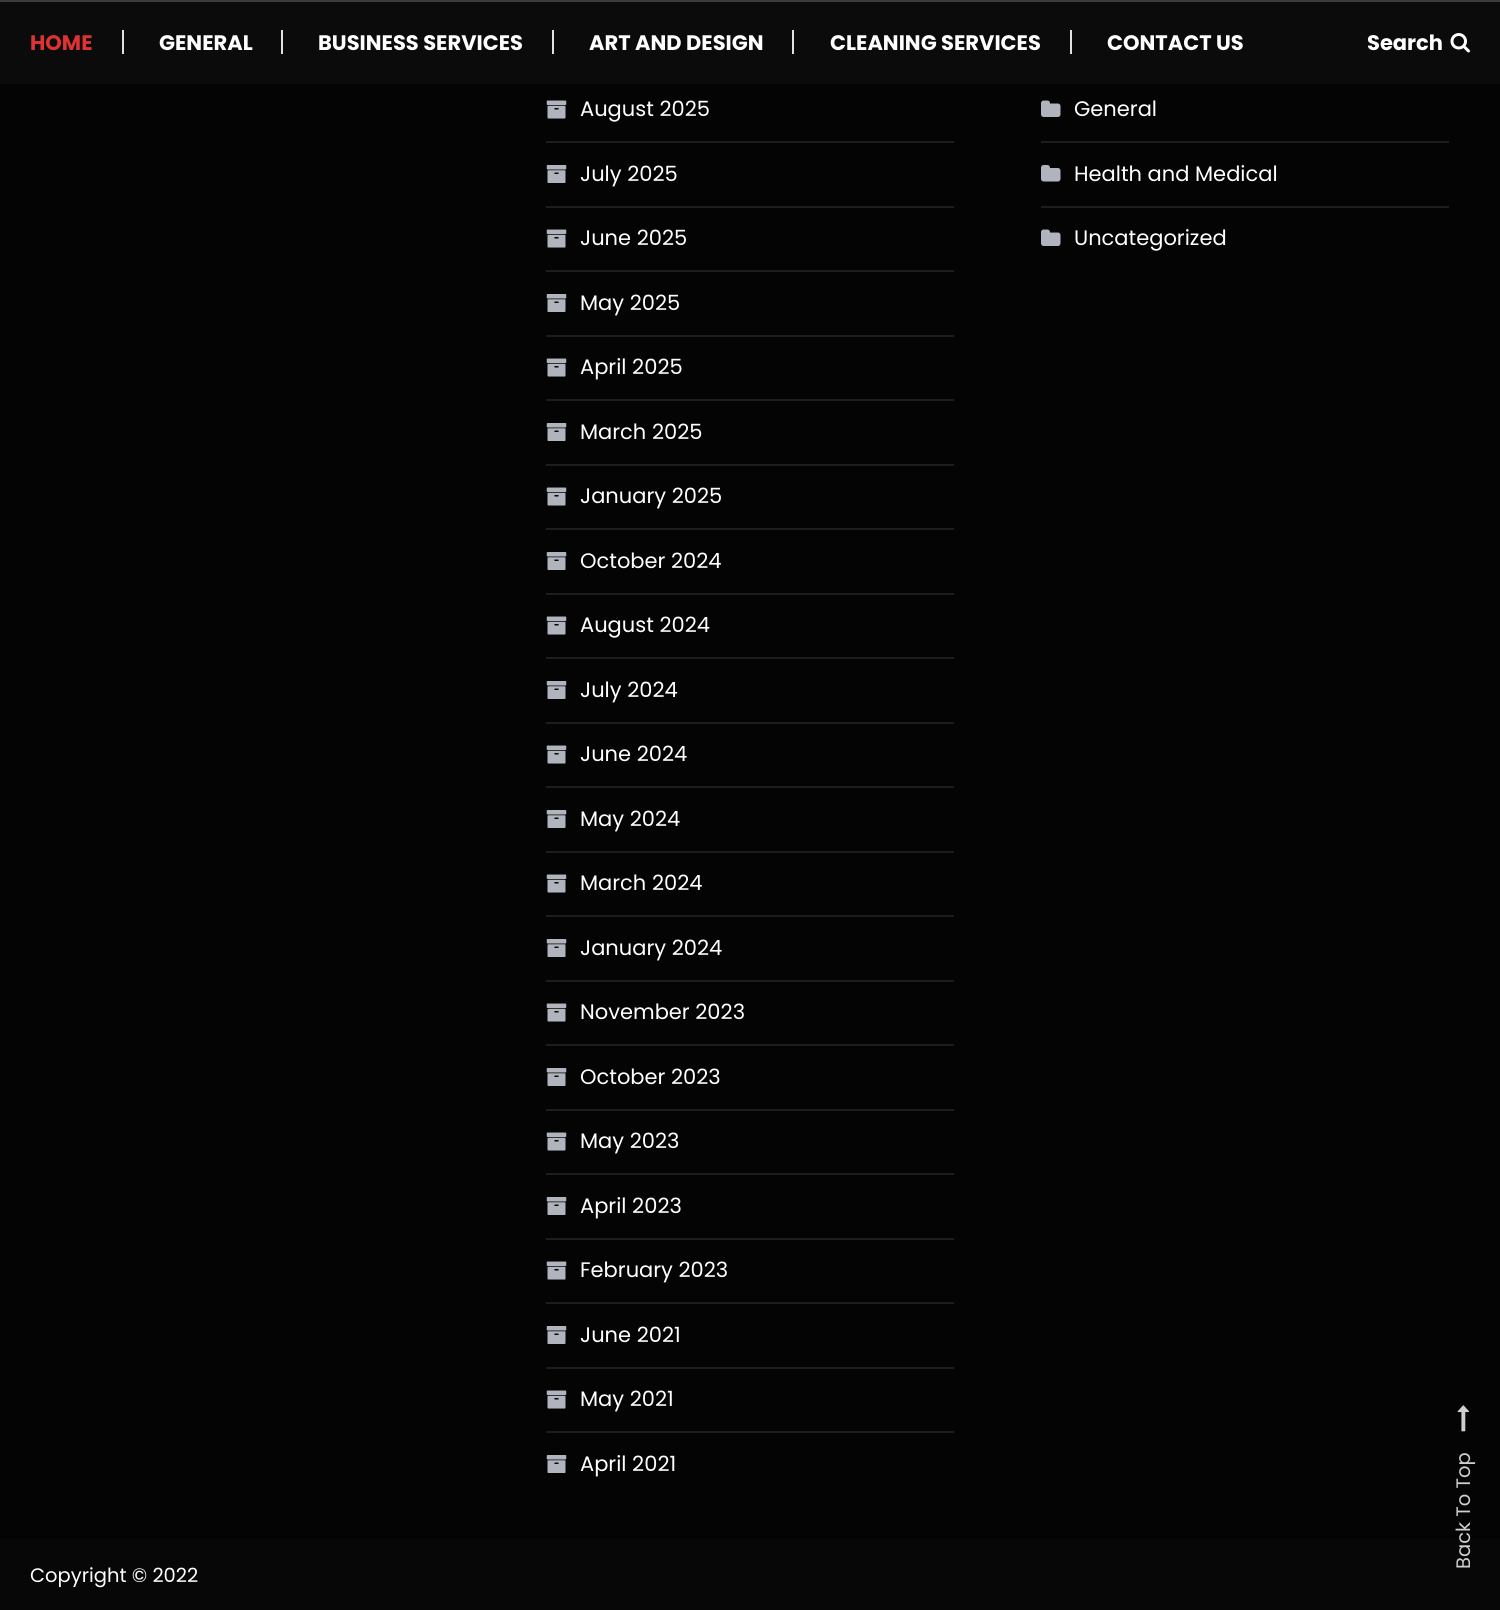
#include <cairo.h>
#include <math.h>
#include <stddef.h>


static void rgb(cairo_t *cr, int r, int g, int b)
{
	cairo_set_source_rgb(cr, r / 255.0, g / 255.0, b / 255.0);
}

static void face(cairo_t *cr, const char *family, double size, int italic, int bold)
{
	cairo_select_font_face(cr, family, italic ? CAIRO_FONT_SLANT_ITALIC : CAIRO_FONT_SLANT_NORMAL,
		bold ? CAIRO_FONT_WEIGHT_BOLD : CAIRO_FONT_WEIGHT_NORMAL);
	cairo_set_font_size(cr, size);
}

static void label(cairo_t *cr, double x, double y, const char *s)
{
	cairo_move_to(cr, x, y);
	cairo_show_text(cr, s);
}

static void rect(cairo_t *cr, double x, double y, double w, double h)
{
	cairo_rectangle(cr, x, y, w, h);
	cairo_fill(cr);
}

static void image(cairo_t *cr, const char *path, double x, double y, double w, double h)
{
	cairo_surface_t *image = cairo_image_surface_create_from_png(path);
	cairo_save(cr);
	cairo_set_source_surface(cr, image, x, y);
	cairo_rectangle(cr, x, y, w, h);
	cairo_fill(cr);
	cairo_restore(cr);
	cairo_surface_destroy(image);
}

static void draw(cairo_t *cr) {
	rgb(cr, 4, 4, 4);
	cairo_paint(cr);
	rgb(cr, 11, 11, 11);
	rect(cr, 0, 2, 1500, 82);
	rgb(cr, 60, 60, 60);
	rect(cr, 0, 0, 1500, 2);
	face(cr, "Poppins", 21, 0, 1);
	rgb(cr, 221, 51, 51);
	label(cr, 30, 50, "HOME");
	rgb(cr, 225, 225, 225);
	rect(cr, 122, 30, 2, 24);
	rgb(cr, 255, 255, 255);
	label(cr, 159, 50, "GENERAL");
	rgb(cr, 225, 225, 225);
	rect(cr, 281, 30, 2, 24);
	rgb(cr, 255, 255, 255);
	label(cr, 318, 50, "BUSINESS SERVICES");
	rgb(cr, 225, 225, 225);
	rect(cr, 552, 30, 2, 24);
	rgb(cr, 255, 255, 255);
	label(cr, 589, 50, "ART AND DESIGN");
	rgb(cr, 225, 225, 225);
	rect(cr, 792, 30, 2, 24);
	rgb(cr, 255, 255, 255);
	label(cr, 830, 50, "CLEANING SERVICES");
	rgb(cr, 225, 225, 225);
	rect(cr, 1070, 30, 2, 24);
	rgb(cr, 255, 255, 255);
	label(cr, 1107, 50, "CONTACT US");
	label(cr, 1367, 50, "Search");
	image(cr, "image0.png", 1450, 33, 20, 20);
	rgb(cr, 29, 29, 29);
	rect(cr, 546, 141, 408, 2);
	image(cr, "image1.png", 546, 100, 21, 19);
	face(cr, "Poppins", 21, 0, 0);
	rgb(cr, 255, 255, 255);
	label(cr, 580, 116, "August 2025");
	rgb(cr, 29, 29, 29);
	rect(cr, 546, 206, 408, 2);
	image(cr, "image2.png", 546, 165, 21, 18);
	rgb(cr, 255, 255, 255);
	label(cr, 580, 181, "July 2025");
	rgb(cr, 29, 29, 29);
	rect(cr, 546, 270, 408, 2);
	image(cr, "image1.png", 546, 229, 21, 19);
	rgb(cr, 255, 255, 255);
	label(cr, 580, 245, "June 2025");
	rgb(cr, 29, 29, 29);
	rect(cr, 546, 335, 408, 2);
	image(cr, "image2.png", 546, 294, 21, 18);
	rgb(cr, 255, 255, 255);
	label(cr, 580, 310, "May 2025");
	rgb(cr, 29, 29, 29);
	rect(cr, 546, 399, 408, 2);
	image(cr, "image1.png", 546, 358, 21, 19);
	rgb(cr, 255, 255, 255);
	label(cr, 580, 374, "April 2025");
	rgb(cr, 29, 29, 29);
	rect(cr, 546, 464, 408, 2);
	image(cr, "image2.png", 546, 423, 21, 18);
	rgb(cr, 255, 255, 255);
	label(cr, 580, 439, "March 2025");
	rgb(cr, 29, 29, 29);
	rect(cr, 546, 528, 408, 2);
	image(cr, "image1.png", 546, 487, 21, 19);
	rgb(cr, 255, 255, 255);
	label(cr, 580, 503, "January 2025");
	rgb(cr, 29, 29, 29);
	rect(cr, 546, 593, 408, 2);
	image(cr, "image2.png", 546, 552, 21, 18);
	rgb(cr, 255, 255, 255);
	label(cr, 580, 568, "October 2024");
	rgb(cr, 29, 29, 29);
	rect(cr, 546, 657, 408, 2);
	image(cr, "image1.png", 546, 616, 21, 19);
	rgb(cr, 255, 255, 255);
	label(cr, 580, 632, "August 2024");
	rgb(cr, 29, 29, 29);
	rect(cr, 546, 722, 408, 2);
	image(cr, "image2.png", 546, 681, 21, 18);
	rgb(cr, 255, 255, 255);
	label(cr, 580, 697, "July 2024");
	rgb(cr, 29, 29, 29);
	rect(cr, 546, 786, 408, 2);
	image(cr, "image1.png", 546, 745, 21, 19);
	rgb(cr, 255, 255, 255);
	label(cr, 580, 761, "June 2024");
	rgb(cr, 29, 29, 29);
	rect(cr, 546, 851, 408, 2);
	image(cr, "image2.png", 546, 810, 21, 18);
	rgb(cr, 255, 255, 255);
	label(cr, 580, 826, "May 2024");
	rgb(cr, 29, 29, 29);
	rect(cr, 546, 915, 408, 2);
	image(cr, "image1.png", 546, 874, 21, 19);
	rgb(cr, 255, 255, 255);
	label(cr, 580, 890, "March 2024");
	rgb(cr, 29, 29, 29);
	rect(cr, 546, 980, 408, 2);
	image(cr, "image2.png", 546, 939, 21, 18);
	rgb(cr, 255, 255, 255);
	label(cr, 580, 955, "January 2024");
	rgb(cr, 29, 29, 29);
	rect(cr, 546, 1044, 408, 2);
	image(cr, "image1.png", 546, 1003, 21, 19);
	rgb(cr, 255, 255, 255);
	label(cr, 580, 1019, "November 2023");
	rgb(cr, 29, 29, 29);
	rect(cr, 546, 1109, 408, 2);
	image(cr, "image2.png", 546, 1068, 21, 18);
	rgb(cr, 255, 255, 255);
	label(cr, 580, 1084, "October 2023");
	rgb(cr, 29, 29, 29);
	rect(cr, 546, 1173, 408, 2);
	image(cr, "image1.png", 546, 1132, 21, 19);
	rgb(cr, 255, 255, 255);
	label(cr, 580, 1148, "May 2023");
	rgb(cr, 29, 29, 29);
	rect(cr, 546, 1238, 408, 2);
	image(cr, "image2.png", 546, 1197, 21, 18);
	rgb(cr, 255, 255, 255);
	label(cr, 580, 1213, "April 2023");
	rgb(cr, 29, 29, 29);
	rect(cr, 546, 1302, 408, 2);
	image(cr, "image1.png", 546, 1261, 21, 19);
	rgb(cr, 255, 255, 255);
	label(cr, 580, 1277, "February 2023");
	rgb(cr, 29, 29, 29);
	rect(cr, 546, 1367, 408, 2);
	image(cr, "image2.png", 546, 1326, 21, 18);
	rgb(cr, 255, 255, 255);
	label(cr, 580, 1342, "June 2021");
	rgb(cr, 29, 29, 29);
	rect(cr, 546, 1431, 408, 2);
	image(cr, "image1.png", 546, 1390, 21, 19);
	rgb(cr, 255, 255, 255);
	label(cr, 580, 1406, "May 2021");
	image(cr, "image2.png", 546, 1455, 21, 18);
	label(cr, 580, 1471, "April 2021");
	rgb(cr, 29, 29, 29);
	rect(cr, 1041, 141, 408, 2);
	image(cr, "image3.png", 1041, 100, 20, 17);
	rgb(cr, 255, 255, 255);
	label(cr, 1074, 116, "General");
	rgb(cr, 29, 29, 29);
	rect(cr, 1041, 206, 408, 2);
	image(cr, "image4.png", 1041, 165, 20, 17);
	rgb(cr, 255, 255, 255);
	label(cr, 1074, 181, "Health and Medical");
	image(cr, "image3.png", 1041, 229, 20, 17);
	label(cr, 1074, 245, "Uncategorized");
	rgb(cr, 7, 7, 7);
	rect(cr, 0, 1539, 1500, 71);
	face(cr, "Poppins", 19.5, 0, 0);
	rgb(cr, 255, 255, 255);
	label(cr, 30, 1582, "Copyright © 2022");
	image(cr, "image5.png", 1457, 1405, 13, 27);
	rgb(cr, 207, 207, 207);
	cairo_save(cr);
	cairo_translate(cr, 1470, 1569);
	cairo_rotate(cr, -90 * M_PI / 180);
	label(cr, 0, 0, "Back To Top");
	cairo_restore(cr);
}

int main(void) {
	cairo_surface_t *surface = cairo_image_surface_create(CAIRO_FORMAT_RGB24, 1500, 1610);
	cairo_t *cr = cairo_create(surface);
	cairo_font_options_t *options = cairo_font_options_create();
	cairo_font_options_set_hint_metrics(options, CAIRO_HINT_METRICS_OFF);
	cairo_font_options_set_hint_style(options, CAIRO_HINT_STYLE_NONE);
	cairo_set_font_options(cr, options);
	cairo_set_miter_limit(cr, 4);
	draw(cr);
	cairo_surface_write_to_png(surface, "render.png");
	cairo_font_options_destroy(options);
	cairo_destroy(cr);
	cairo_surface_destroy(surface);
	return 0;
}
